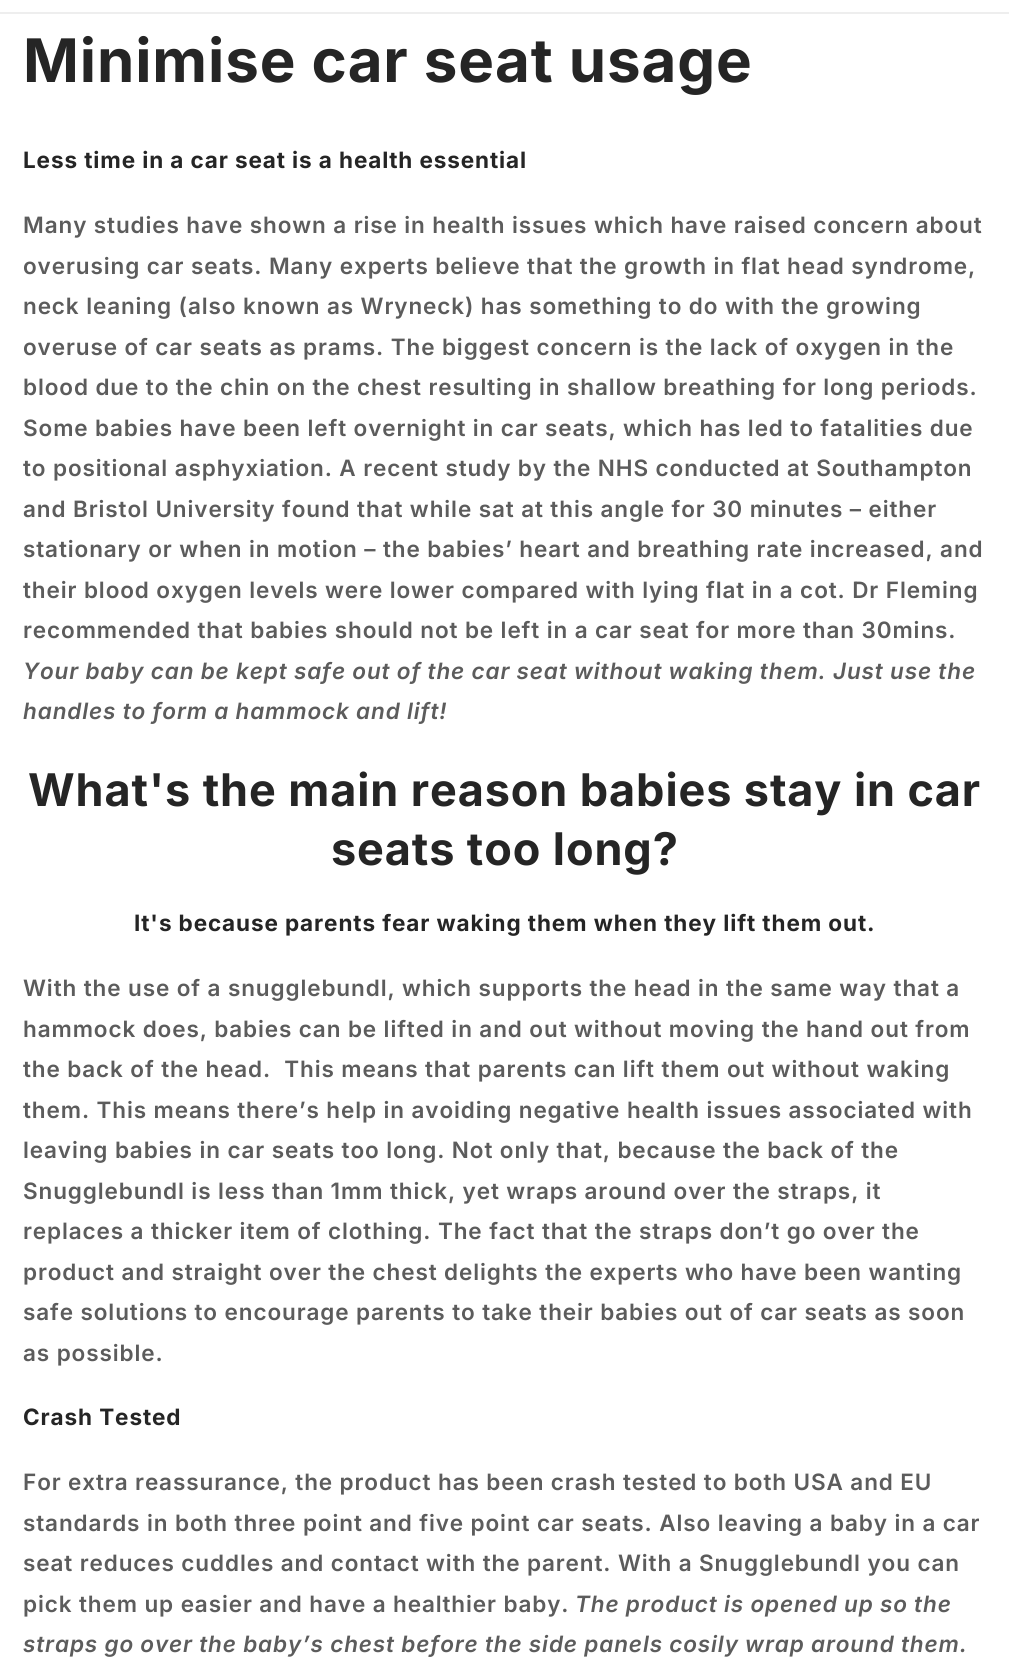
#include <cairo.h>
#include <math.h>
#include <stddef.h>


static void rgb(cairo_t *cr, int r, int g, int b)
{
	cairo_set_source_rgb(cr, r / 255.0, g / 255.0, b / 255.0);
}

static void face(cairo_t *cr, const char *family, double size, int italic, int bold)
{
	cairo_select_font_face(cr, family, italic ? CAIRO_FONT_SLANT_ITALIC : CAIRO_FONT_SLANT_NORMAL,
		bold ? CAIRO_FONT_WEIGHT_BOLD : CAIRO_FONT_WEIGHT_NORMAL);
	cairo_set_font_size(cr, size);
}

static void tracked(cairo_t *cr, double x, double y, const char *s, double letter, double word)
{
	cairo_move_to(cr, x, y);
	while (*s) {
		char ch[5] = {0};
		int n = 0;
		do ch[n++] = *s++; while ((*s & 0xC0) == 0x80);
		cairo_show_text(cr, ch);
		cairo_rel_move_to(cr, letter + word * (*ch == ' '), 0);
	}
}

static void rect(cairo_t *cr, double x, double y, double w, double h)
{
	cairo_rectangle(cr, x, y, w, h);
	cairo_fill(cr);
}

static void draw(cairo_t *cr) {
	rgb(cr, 255, 255, 255);
	cairo_paint(cr);
	rgb(cr, 238, 238, 238);
	rect(cr, 0, 12, 1009, 2);
	face(cr, "Inter", 60, 0, 1);
	rgb(cr, 37, 37, 37);
	tracked(cr, 23, 82, "Minimise car seat usage", 0.9, 0);
	face(cr, "Inter", 22.5, 0, 1);
	tracked(cr, 23, 168, "Less time in a car seat is a health essential", 0.9, 0);
	face(cr, "Inter SemiBold", 22.5, 0, 0);
	rgb(cr, 92, 92, 92);
	tracked(cr, 23, 233, "Many studies have shown a rise in health issues which have raised concern about", 0.9, 0);
	tracked(cr, 23, 274, "overusing car seats. Many experts believe that the growth in flat head syndrome,", 0.9, 0);
	tracked(cr, 23, 314, "neck leaning (also known as Wryneck) has something to do with the growing", 0.9, 0);
	tracked(cr, 23, 355, "overuse of car seats as prams. The biggest concern is the lack of oxygen in the", 0.9, 0);
	tracked(cr, 23, 395, "blood due to the chin on the chest resulting in shallow breathing for long periods.", 0.9, 0);
	tracked(cr, 23, 436, "Some babies have been left overnight in car seats, which has led to fatalities due", 0.9, 0);
	tracked(cr, 23, 476, "to positional asphyxiation. A recent study by the NHS conducted at Southampton", 0.9, 0);
	tracked(cr, 23, 517, "and Bristol University found that while sat at this angle for 30 minutes – either", 0.9, 0);
	tracked(cr, 23, 557, "stationary or when in motion – the babies’ heart and breathing rate increased, and", 0.9, 0);
	tracked(cr, 23, 598, "their blood oxygen levels were lower compared with lying flat in a cot. Dr Fleming", 0.9, 0);
	tracked(cr, 23, 638, "recommended that babies should not be left in a car seat for more than 30mins.", 0.9, 0);
	face(cr, "Inter SemiBold", 22.5, 1, 0);
	tracked(cr, 23, 679, "Your baby can be kept safe out of the car seat without waking them. Just use the", 0.9, -0.25);
	tracked(cr, 23, 719, "handles to form a hammock and lift!", 0.9, -0.25);
	face(cr, "Inter", 45, 0, 1);
	rgb(cr, 37, 37, 37);
	tracked(cr, 28, 806, "What's the main reason babies stay in car", 0.9, 0);
	tracked(cr, 331, 865, "seats too long?", 0.9, 0);
	face(cr, "Inter", 22.5, 0, 1);
	tracked(cr, 134, 931, "It's because parents fear waking them when they lift them out.", 0.9, 0);
	face(cr, "Inter SemiBold", 22.5, 0, 0);
	rgb(cr, 92, 92, 92);
	tracked(cr, 23, 996, "With the use of a snugglebundl, which supports the head in the same way that a", 0.9, 0);
	tracked(cr, 23, 1037, "hammock does, babies can be lifted in and out without moving the hand out from", 0.9, 0);
	tracked(cr, 23, 1077, "the back of the head.  This means that parents can lift them out without waking", 0.9, 0);
	tracked(cr, 23, 1118, "them. This means there’s help in avoiding negative health issues associated with", 0.9, 0);
	tracked(cr, 23, 1158, "leaving babies in car seats too long. Not only that, because the back of the", 0.9, 0);
	tracked(cr, 23, 1199, "Snugglebundl is less than 1mm thick, yet wraps around over the straps, it", 0.9, 0);
	tracked(cr, 23, 1239, "replaces a thicker item of clothing. The fact that the straps don’t go over the", 0.9, 0);
	tracked(cr, 23, 1280, "product and straight over the chest delights the experts who have been wanting", 0.9, 0);
	tracked(cr, 23, 1320, "safe solutions to encourage parents to take their babies out of car seats as soon", 0.9, 0);
	tracked(cr, 23, 1361, "as possible.", 0.9, 0);
	face(cr, "Inter", 22.5, 0, 1);
	rgb(cr, 37, 37, 37);
	tracked(cr, 23, 1425, "Crash Tested", 0.9, 0);
	face(cr, "Inter SemiBold", 22.5, 0, 0);
	rgb(cr, 92, 92, 92);
	tracked(cr, 23, 1490, "For extra reassurance, the product has been crash tested to both USA and EU", 0.9, 0);
	tracked(cr, 23, 1531, "standards in both three point and five point car seats. Also leaving a baby in a car", 0.9, 0);
	tracked(cr, 23, 1571, "seat reduces cuddles and contact with the parent. With a Snugglebundl you can", 0.9, 0);
	tracked(cr, 23, 1612, "pick them up easier and have a healthier baby.", 0.9, 0);
	face(cr, "Inter SemiBold", 22.5, 1, 0);
	tracked(cr, 575, 1612, "The product is opened up so the", 0.9, -0.25);
	tracked(cr, 23, 1652, "straps go over the baby’s chest before the side panels cosily wrap around them.", 0.9, -0.25);
}

int main(void) {
	cairo_surface_t *surface = cairo_image_surface_create(CAIRO_FORMAT_RGB24, 1009, 1674);
	cairo_t *cr = cairo_create(surface);
	cairo_font_options_t *options = cairo_font_options_create();
	cairo_font_options_set_hint_metrics(options, CAIRO_HINT_METRICS_OFF);
	cairo_font_options_set_hint_style(options, CAIRO_HINT_STYLE_NONE);
	cairo_set_font_options(cr, options);
	cairo_set_miter_limit(cr, 4);
	draw(cr);
	cairo_surface_write_to_png(surface, "render.png");
	cairo_font_options_destroy(options);
	cairo_destroy(cr);
	cairo_surface_destroy(surface);
	return 0;
}
